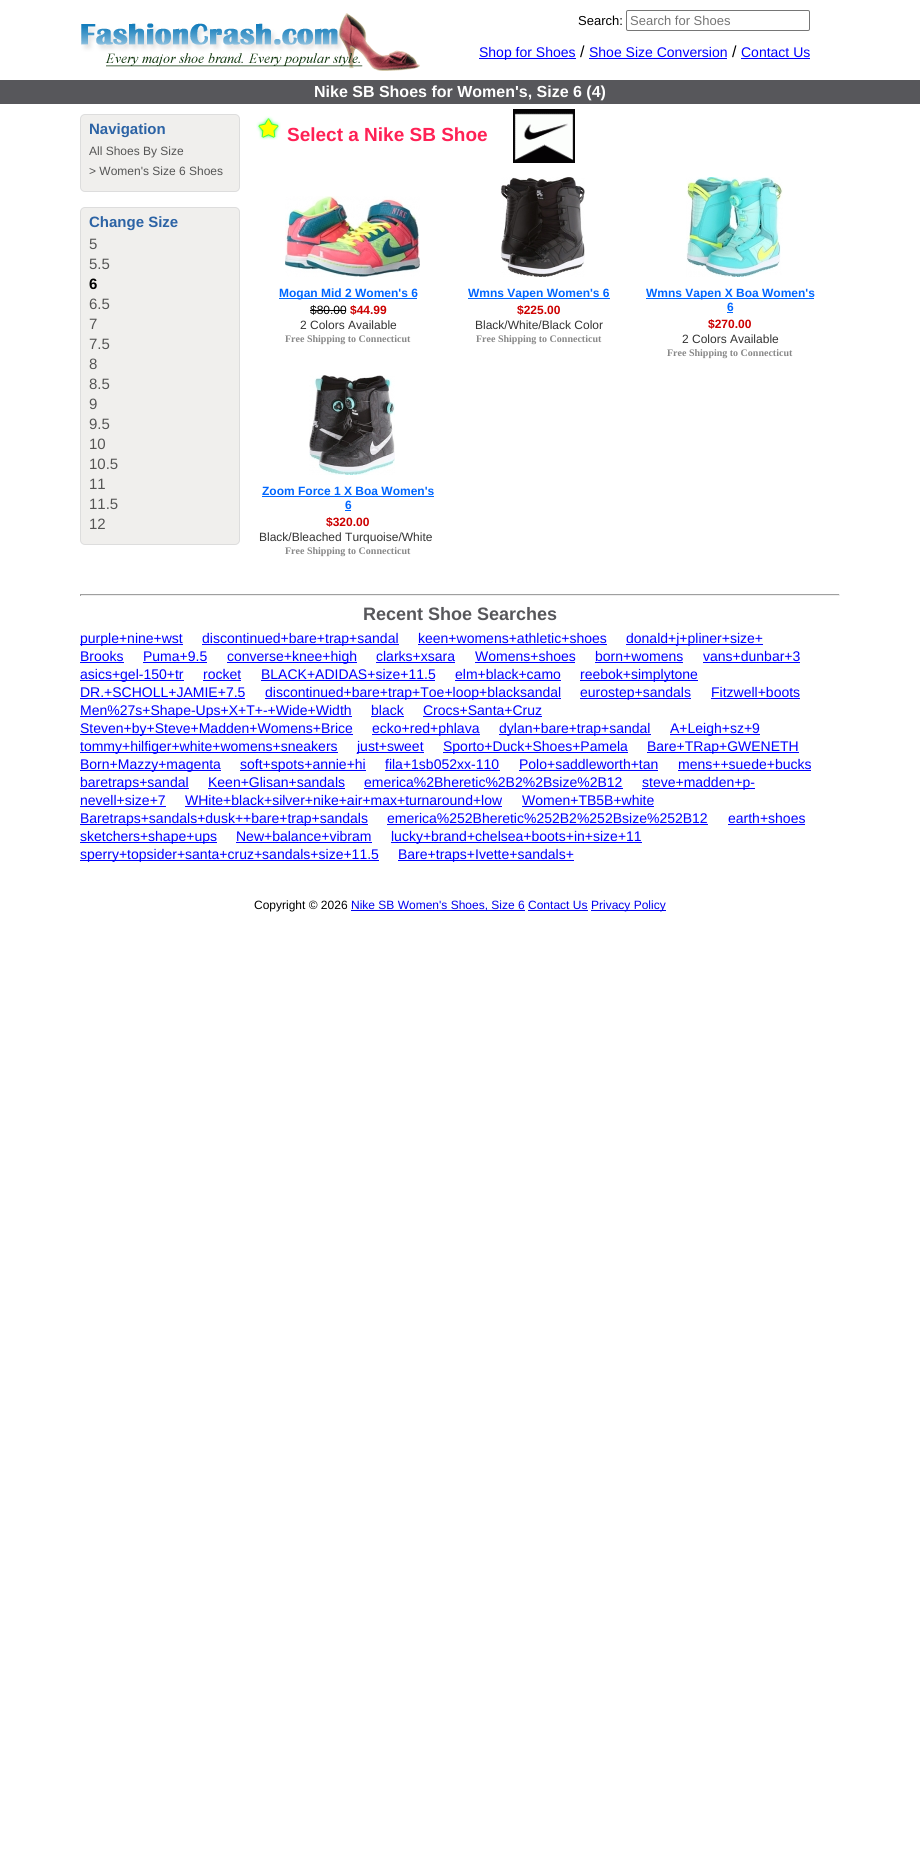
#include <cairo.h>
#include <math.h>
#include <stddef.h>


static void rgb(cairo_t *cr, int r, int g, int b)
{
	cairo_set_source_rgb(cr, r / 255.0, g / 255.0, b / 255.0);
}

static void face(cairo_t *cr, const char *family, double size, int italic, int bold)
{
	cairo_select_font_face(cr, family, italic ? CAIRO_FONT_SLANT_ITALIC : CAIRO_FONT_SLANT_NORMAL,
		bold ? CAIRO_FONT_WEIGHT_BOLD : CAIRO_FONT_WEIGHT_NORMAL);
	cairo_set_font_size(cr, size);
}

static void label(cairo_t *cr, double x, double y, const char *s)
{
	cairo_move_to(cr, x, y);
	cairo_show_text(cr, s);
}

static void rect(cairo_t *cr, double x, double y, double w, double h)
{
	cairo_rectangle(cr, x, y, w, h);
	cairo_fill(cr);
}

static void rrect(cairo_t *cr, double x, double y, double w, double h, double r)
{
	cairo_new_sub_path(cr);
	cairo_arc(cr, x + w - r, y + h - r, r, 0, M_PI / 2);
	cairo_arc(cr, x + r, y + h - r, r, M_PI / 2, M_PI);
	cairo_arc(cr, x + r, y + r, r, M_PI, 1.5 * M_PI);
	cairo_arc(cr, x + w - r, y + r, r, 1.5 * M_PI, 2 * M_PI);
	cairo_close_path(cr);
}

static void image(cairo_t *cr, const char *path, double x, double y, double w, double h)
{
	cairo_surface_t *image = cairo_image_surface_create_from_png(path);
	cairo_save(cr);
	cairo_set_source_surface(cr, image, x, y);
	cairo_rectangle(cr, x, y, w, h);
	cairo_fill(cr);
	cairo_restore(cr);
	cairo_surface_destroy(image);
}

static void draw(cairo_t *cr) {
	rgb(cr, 255, 255, 255);
	cairo_paint(cr);
	image(cr, "image0.png", 81, 13, 339, 58);
	face(cr, "Liberation Sans", 13, 0, 0);
	rgb(cr, 0, 0, 0);
	label(cr, 578, 25, "Search:");
	rrect(cr, 626.5, 10.5, 183, 20, 1.5);
	rgb(cr, 118, 118, 118);
	cairo_set_line_width(cr, 1);
	cairo_stroke(cr);
	rgb(cr, 117, 117, 117);
	label(cr, 630, 25, "Search for Shoes");
	rgb(cr, 0, 0, 255);
	rect(cr, 479, 58, 97, 1);
	face(cr, "Liberation Sans", 14, 0, 0);
	label(cr, 479, 57, "Shop for Shoes");
	face(cr, "Liberation Sans", 16, 0, 0);
	rgb(cr, 0, 0, 0);
	label(cr, 580, 57, "/");
	face(cr, "Liberation Sans", 14, 0, 0);
	rgb(cr, 0, 0, 255);
	label(cr, 589, 57, "Shoe Size Conversion");
	rect(cr, 589, 58, 138, 1);
	face(cr, "Liberation Sans", 16, 0, 0);
	rgb(cr, 0, 0, 0);
	label(cr, 732, 57, "/");
	face(cr, "Liberation Sans", 14, 0, 0);
	rgb(cr, 0, 0, 255);
	label(cr, 741, 57, "Contact Us");
	rect(cr, 741, 58, 69, 1);
	rgb(cr, 87, 87, 91);
	rect(cr, 0, 80, 920, 24);
	face(cr, "Liberation Sans", 16, 0, 1);
	rgb(cr, 255, 255, 255);
	label(cr, 314, 97, "Nike SB Shoes for Women's, Size 6 (4)");
	rgb(cr, 240, 239, 237);
	rrect(cr, 80.5, 114.5, 159, 77, 4.5);
	cairo_fill_preserve(cr);
	rgb(cr, 221, 221, 221);
	cairo_stroke(cr);
	face(cr, "Liberation Sans", 15, 0, 1);
	rgb(cr, 44, 99, 165);
	label(cr, 89, 134, "Navigation");
	face(cr, "Liberation Sans", 12, 0, 0);
	rgb(cr, 85, 85, 85);
	label(cr, 89, 155, "All Shoes By Size");
	label(cr, 89, 175, "> Women's Size 6 Shoes");
	rgb(cr, 240, 239, 237);
	rrect(cr, 80.5, 207.5, 159, 337, 4.5);
	cairo_fill_preserve(cr);
	rgb(cr, 221, 221, 221);
	cairo_stroke(cr);
	face(cr, "Liberation Sans", 15, 0, 1);
	rgb(cr, 44, 99, 165);
	label(cr, 89, 227, "Change Size");
	face(cr, "Liberation Sans", 15, 0, 0);
	rgb(cr, 85, 85, 85);
	label(cr, 89, 249, "5");
	label(cr, 89, 269, "5.5");
	face(cr, "Liberation Sans", 15, 0, 1);
	rgb(cr, 0, 0, 0);
	label(cr, 89, 289, "6");
	face(cr, "Liberation Sans", 15, 0, 0);
	rgb(cr, 85, 85, 85);
	label(cr, 89, 309, "6.5");
	label(cr, 89, 329, "7");
	label(cr, 89, 349, "7.5");
	label(cr, 89, 369, "8");
	label(cr, 89, 389, "8.5");
	label(cr, 89, 409, "9");
	label(cr, 89, 429, "9.5");
	label(cr, 89, 449, "10");
	label(cr, 89, 469, "10.5");
	label(cr, 89, 489, "11");
	label(cr, 89, 509, "11.5");
	label(cr, 89, 529, "12");
	image(cr, "image1.png", 256, 116, 25, 24);
	face(cr, "Liberation Sans", 19, 0, 1);
	rgb(cr, 255, 33, 85);
	label(cr, 287, 141, "Select a Nike SB Shoe");
	image(cr, "image2.png", 513, 109, 62, 54);
	image(cr, "image3.png", 285, 196, 135, 81);
	rgb(cr, 0, 102, 255);
	rect(cr, 279, 298, 138, 1);
	face(cr, "Liberation Sans", 12, 0, 1);
	label(cr, 279, 297, "Mogan Mid 2 Women's 6");
	face(cr, "Liberation Sans", 12, 0, 0);
	rgb(cr, 0, 0, 0);
	label(cr, 310, 314, "$80.00");
	rect(cr, 310, 310, 36, 1);
	face(cr, "Liberation Sans", 12, 0, 1);
	rgb(cr, 204, 0, 0);
	label(cr, 350, 314, "$44.99");
	face(cr, "Liberation Sans", 12, 0, 0);
	rgb(cr, 51, 51, 51);
	label(cr, 300, 329, "2 Colors Available");
	face(cr, "Liberation Serif", 10, 0, 1);
	rgb(cr, 136, 136, 136);
	label(cr, 285, 342, "Free Shipping to Connecticut");
	image(cr, "image4.png", 500, 177, 85, 100);
	rgb(cr, 0, 102, 255);
	rect(cr, 468, 298, 142, 1);
	face(cr, "Liberation Sans", 12, 0, 1);
	label(cr, 468, 297, "Wmns Vapen Women's 6");
	rgb(cr, 204, 0, 0);
	label(cr, 517, 314, "$225.00");
	face(cr, "Liberation Sans", 12, 0, 0);
	rgb(cr, 51, 51, 51);
	label(cr, 475, 329, "Black/White/Black Color");
	face(cr, "Liberation Serif", 10, 0, 1);
	rgb(cr, 136, 136, 136);
	label(cr, 476, 342, "Free Shipping to Connecticut");
	image(cr, "image5.png", 686, 177, 97, 100);
	rgb(cr, 0, 102, 255);
	rect(cr, 646, 298, 168, 1);
	face(cr, "Liberation Sans", 12, 0, 1);
	label(cr, 646, 297, "Wmns Vapen X Boa Women's");
	label(cr, 727, 311, "6");
	rect(cr, 727, 312, 6, 1);
	rgb(cr, 204, 0, 0);
	label(cr, 708, 328, "$270.00");
	face(cr, "Liberation Sans", 12, 0, 0);
	rgb(cr, 51, 51, 51);
	label(cr, 682, 343, "2 Colors Available");
	face(cr, "Liberation Serif", 10, 0, 1);
	rgb(cr, 136, 136, 136);
	label(cr, 667, 356, "Free Shipping to Connecticut");
	image(cr, "image6.png", 309, 375, 86, 100);
	face(cr, "Liberation Sans", 12, 0, 1);
	rgb(cr, 0, 102, 255);
	label(cr, 262, 495, "Zoom Force 1 X Boa Women's");
	rect(cr, 262, 496, 172, 1);
	label(cr, 345, 509, "6");
	rect(cr, 345, 510, 6, 1);
	rgb(cr, 204, 0, 0);
	label(cr, 326, 526, "$320.00");
	face(cr, "Liberation Sans", 12, 0, 0);
	rgb(cr, 51, 51, 51);
	label(cr, 259, 541, "Black/Bleached Turquoise/White");
	face(cr, "Liberation Serif", 10, 0, 1);
	rgb(cr, 136, 136, 136);
	label(cr, 285, 554, "Free Shipping to Connecticut");
	rgb(cr, 159, 159, 159);
	rect(cr, 80, 594, 760, 1);
	rgb(cr, 238, 238, 238);
	rect(cr, 839, 594, 1, 2);
	rect(cr, 80, 595, 760, 1);
	rgb(cr, 159, 159, 159);
	rect(cr, 80, 594, 1, 2);
	face(cr, "Liberation Sans", 18, 0, 1);
	rgb(cr, 87, 87, 91);
	label(cr, 363, 620, "Recent Shoe Searches");
	rgb(cr, 0, 0, 255);
	rect(cr, 80, 644, 103, 1);
	face(cr, "Liberation Sans", 14, 0, 0);
	label(cr, 80, 643, "purple+nine+wst");
	rect(cr, 202, 644, 197, 1);
	label(cr, 202, 643, "discontinued+bare+trap+sandal");
	label(cr, 418, 643, "keen+womens+athletic+shoes");
	rect(cr, 418, 644, 189, 1);
	rect(cr, 626, 644, 137, 1);
	label(cr, 626, 643, "donald+j+pliner+size+");
	label(cr, 80, 661, "Brooks");
	rect(cr, 80, 662, 44, 1);
	label(cr, 143, 661, "Puma+9.5");
	rect(cr, 143, 662, 64, 1);
	rect(cr, 227, 662, 130, 1);
	label(cr, 227, 661, "converse+knee+high");
	label(cr, 376, 661, "clarks+xsara");
	rect(cr, 376, 662, 79, 1);
	label(cr, 475, 661, "Womens+shoes");
	rect(cr, 475, 662, 100, 1);
	label(cr, 595, 661, "born+womens");
	rect(cr, 595, 662, 88, 1);
	label(cr, 703, 661, "vans+dunbar+3");
	rect(cr, 703, 662, 97, 1);
	rect(cr, 80, 680, 104, 1);
	label(cr, 80, 679, "asics+gel-150+tr");
	label(cr, 203, 679, "rocket");
	rect(cr, 203, 680, 38, 1);
	label(cr, 261, 679, "BLACK+ADIDAS+size+11.5");
	rect(cr, 261, 680, 174, 1);
	label(cr, 455, 679, "elm+black+camo");
	rect(cr, 455, 680, 106, 1);
	rect(cr, 580, 680, 118, 1);
	label(cr, 580, 679, "reebok+simplytone");
	label(cr, 80, 697, "DR.+SCHOLL+JAMIE+7.5");
	rect(cr, 80, 698, 165, 1);
	rect(cr, 265, 698, 296, 1);
	label(cr, 265, 697, "discontinued+bare+trap+Toe+loop+blacksandal");
	rect(cr, 580, 698, 111, 1);
	label(cr, 580, 697, "eurostep+sandals");
	label(cr, 711, 697, "Fitzwell+boots");
	rect(cr, 711, 698, 89, 1);
	rect(cr, 80, 716, 272, 1);
	label(cr, 80, 715, "Men%27s+Shape-Ups+X+T+-+Wide+Width");
	label(cr, 371, 715, "black");
	rect(cr, 371, 716, 33, 1);
	label(cr, 423, 715, "Crocs+Santa+Cruz");
	rect(cr, 423, 716, 119, 1);
	rect(cr, 80, 734, 273, 1);
	label(cr, 80, 733, "Steven+by+Steve+Madden+Womens+Brice");
	rect(cr, 372, 734, 108, 1);
	label(cr, 372, 733, "ecko+red+phlava");
	rect(cr, 499, 734, 152, 1);
	label(cr, 499, 733, "dylan+bare+trap+sandal");
	rect(cr, 670, 734, 90, 1);
	label(cr, 670, 733, "A+Leigh+sz+9");
	rect(cr, 80, 752, 258, 1);
	label(cr, 80, 751, "tommy+hilfiger+white+womens+sneakers");
	rect(cr, 357, 752, 67, 1);
	label(cr, 357, 751, "just+sweet");
	rect(cr, 443, 752, 185, 1);
	label(cr, 443, 751, "Sporto+Duck+Shoes+Pamela");
	rect(cr, 647, 752, 152, 1);
	label(cr, 647, 751, "Bare+TRap+GWENETH");
	rect(cr, 80, 770, 141, 1);
	label(cr, 80, 769, "Born+Mazzy+magenta");
	rect(cr, 240, 770, 126, 1);
	label(cr, 240, 769, "soft+spots+annie+hi");
	label(cr, 385, 769, "fila+1sb052xx-110");
	rect(cr, 385, 770, 115, 1);
	label(cr, 519, 769, "Polo+saddleworth+tan");
	rect(cr, 519, 770, 139, 1);
	label(cr, 678, 769, "mens++suede+bucks");
	rect(cr, 678, 770, 133, 1);
	rect(cr, 80, 788, 109, 1);
	label(cr, 80, 787, "baretraps+sandal");
	label(cr, 208, 787, "Keen+Glisan+sandals");
	rect(cr, 208, 788, 137, 1);
	label(cr, 364, 787, "emerica%2Bheretic%2B2%2Bsize%2B12");
	rect(cr, 364, 788, 259, 1);
	rect(cr, 642, 788, 113, 1);
	label(cr, 642, 787, "steve+madden+p-");
	label(cr, 80, 805, "nevell+size+7");
	rect(cr, 80, 806, 86, 1);
	label(cr, 185, 805, "WHite+black+silver+nike+air+max+turnaround+low");
	rect(cr, 185, 806, 317, 1);
	label(cr, 522, 805, "Women+TB5B+white");
	rect(cr, 522, 806, 132, 1);
	rect(cr, 80, 824, 288, 1);
	label(cr, 80, 823, "Baretraps+sandals+dusk++bare+trap+sandals");
	label(cr, 387, 823, "emerica%252Bheretic%252B2%252Bsize%252B12");
	rect(cr, 387, 824, 321, 1);
	label(cr, 728, 823, "earth+shoes");
	rect(cr, 728, 824, 77, 1);
	rect(cr, 80, 842, 137, 1);
	label(cr, 80, 841, "sketchers+shape+ups");
	label(cr, 236, 841, "New+balance+vibram");
	rect(cr, 236, 842, 136, 1);
	rect(cr, 391, 842, 251, 1);
	label(cr, 391, 841, "lucky+brand+chelsea+boots+in+size+11");
	rect(cr, 80, 860, 299, 1);
	label(cr, 80, 859, "sperry+topsider+santa+cruz+sandals+size+11.5");
	rect(cr, 398, 860, 176, 1);
	label(cr, 398, 859, "Bare+traps+Ivette+sandals+");
	face(cr, "Liberation Sans", 12, 0, 0);
	rgb(cr, 0, 0, 0);
	label(cr, 254, 909, "Copyright © 2026");
	rgb(cr, 0, 0, 238);
	rect(cr, 351, 910, 174, 1);
	label(cr, 351, 909, "Nike SB Women's Shoes, Size 6 Contact Us");
	rect(cr, 591, 910, 75, 1);
	label(cr, 591, 909, "Privacy Policy");
	rect(cr, 528, 910, 60, 1);
}

int main(void) {
	cairo_surface_t *surface = cairo_image_surface_create(CAIRO_FORMAT_RGB24, 920, 1852);
	cairo_t *cr = cairo_create(surface);
	cairo_font_options_t *options = cairo_font_options_create();
	cairo_font_options_set_hint_metrics(options, CAIRO_HINT_METRICS_OFF);
	cairo_font_options_set_hint_style(options, CAIRO_HINT_STYLE_NONE);
	cairo_set_font_options(cr, options);
	cairo_set_miter_limit(cr, 4);
	draw(cr);
	cairo_surface_write_to_png(surface, "render.png");
	cairo_font_options_destroy(options);
	cairo_destroy(cr);
	cairo_surface_destroy(surface);
	return 0;
}
